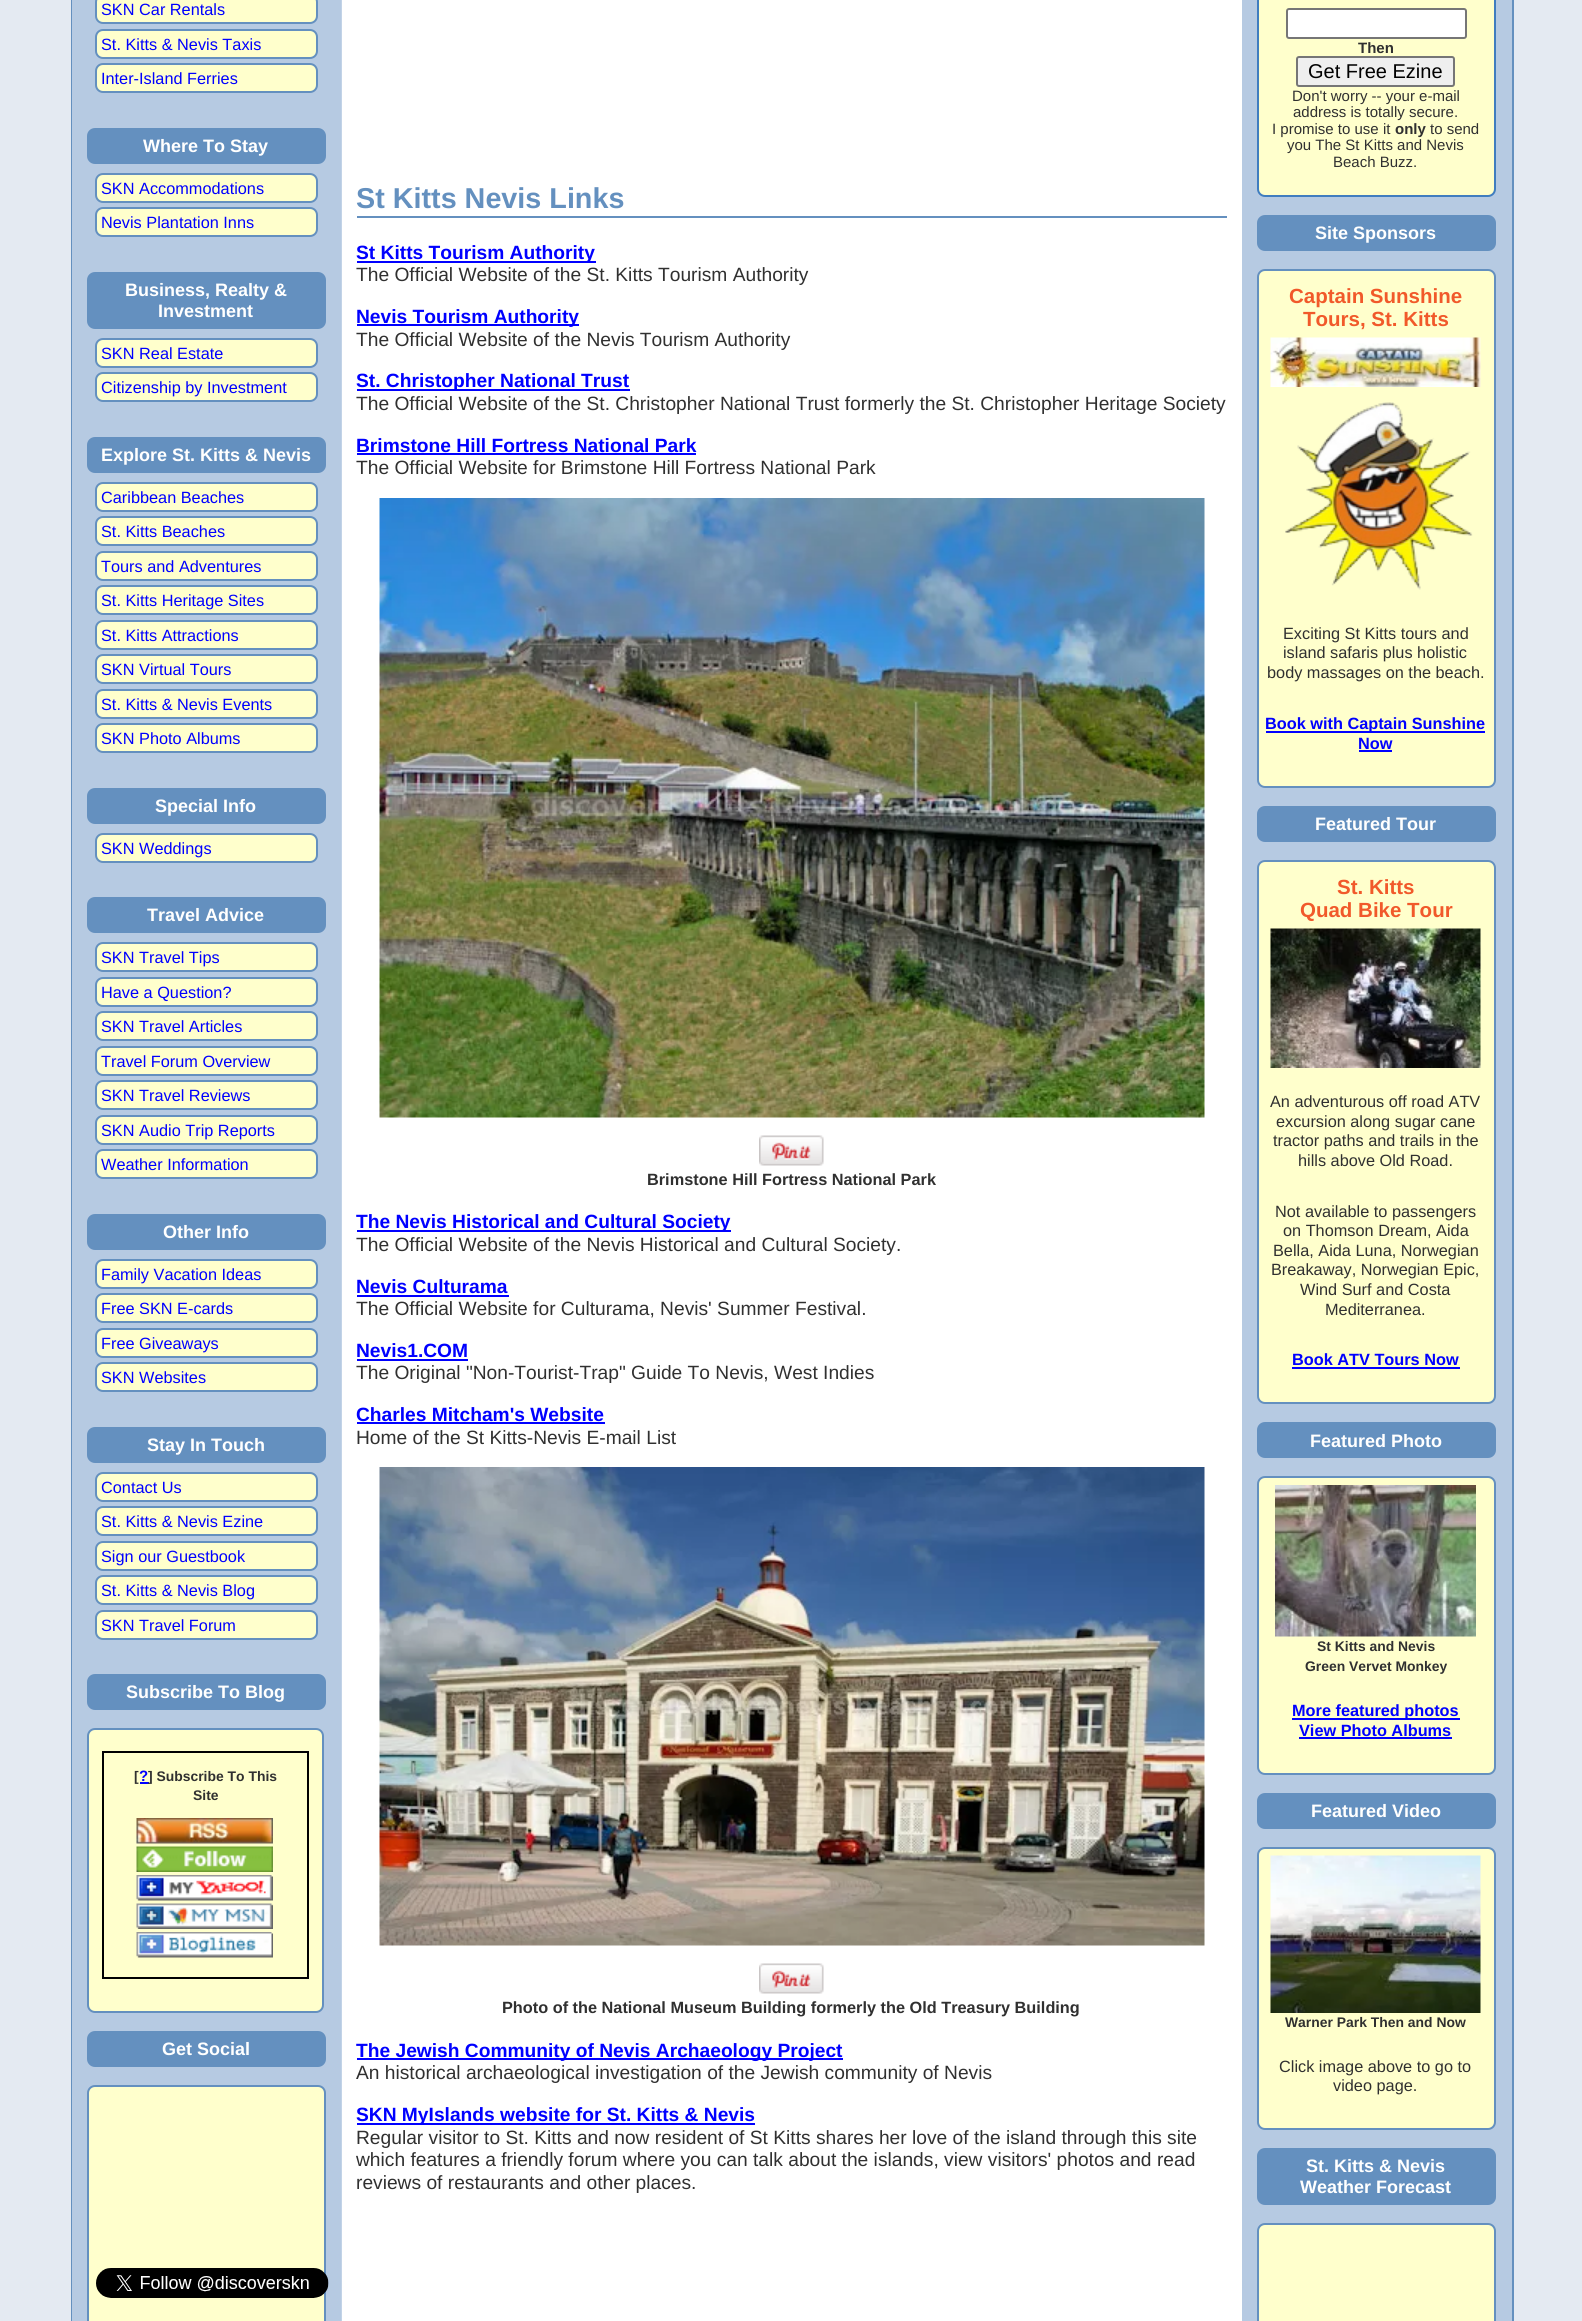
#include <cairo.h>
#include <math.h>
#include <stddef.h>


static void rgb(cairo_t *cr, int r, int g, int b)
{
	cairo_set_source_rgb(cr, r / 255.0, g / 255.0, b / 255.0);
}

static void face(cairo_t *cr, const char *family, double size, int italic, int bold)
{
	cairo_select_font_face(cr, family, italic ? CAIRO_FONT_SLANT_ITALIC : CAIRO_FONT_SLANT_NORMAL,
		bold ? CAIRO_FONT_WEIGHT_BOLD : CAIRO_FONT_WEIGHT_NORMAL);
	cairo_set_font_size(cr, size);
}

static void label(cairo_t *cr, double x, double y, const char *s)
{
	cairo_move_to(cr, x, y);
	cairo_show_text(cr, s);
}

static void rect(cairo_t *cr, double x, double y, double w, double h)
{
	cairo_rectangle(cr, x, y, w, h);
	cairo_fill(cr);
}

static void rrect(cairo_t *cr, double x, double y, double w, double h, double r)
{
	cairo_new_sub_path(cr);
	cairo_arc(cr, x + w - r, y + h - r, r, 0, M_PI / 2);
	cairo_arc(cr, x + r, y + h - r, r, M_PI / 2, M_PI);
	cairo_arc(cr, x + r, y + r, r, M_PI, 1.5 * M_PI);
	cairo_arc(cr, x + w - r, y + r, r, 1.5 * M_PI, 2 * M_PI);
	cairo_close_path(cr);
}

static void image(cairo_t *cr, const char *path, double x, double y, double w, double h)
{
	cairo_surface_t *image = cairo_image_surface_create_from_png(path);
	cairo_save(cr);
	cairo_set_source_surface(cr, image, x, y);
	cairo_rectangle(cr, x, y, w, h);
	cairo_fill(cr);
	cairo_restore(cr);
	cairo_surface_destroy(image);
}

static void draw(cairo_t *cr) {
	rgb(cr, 228, 234, 242);
	cairo_paint(cr);
	image(cr, "image0.png", 73, 0, 1439, 2321);
	cairo_rectangle(cr, 72, -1, 1441, 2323);
	rgb(cr, 100, 144, 191);
	cairo_stroke(cr);
	rgb(cr, 255, 255, 204);
	rrect(cr, 96, -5, 221, 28, 7);
	cairo_fill_preserve(cr);
	rgb(cr, 100, 144, 191);
	cairo_stroke(cr);
	face(cr, "Liberation Sans", 16.3, 0, 0);
	rgb(cr, 0, 0, 255);
	label(cr, 101, 15, "SKN Car Rentals");
	rgb(cr, 255, 255, 204);
	rrect(cr, 96, 30, 221, 28, 7);
	cairo_fill_preserve(cr);
	rgb(cr, 100, 144, 191);
	cairo_stroke(cr);
	rgb(cr, 0, 0, 255);
	label(cr, 101, 50, "St. Kitts & Nevis Taxis");
	rgb(cr, 255, 255, 204);
	rrect(cr, 96, 64, 221, 28, 7);
	cairo_fill_preserve(cr);
	rgb(cr, 100, 144, 191);
	cairo_stroke(cr);
	rgb(cr, 0, 0, 255);
	label(cr, 101, 84, "Inter-Island Ferries");
	rgb(cr, 100, 144, 191);
	rrect(cr, 87, 128, 239, 36, 8);
	cairo_fill(cr);
	face(cr, "Liberation Sans", 18, 0, 1);
	rgb(cr, 255, 255, 255);
	label(cr, 143, 152, "Where To Stay");
	rgb(cr, 255, 255, 204);
	rrect(cr, 96, 174, 221, 28, 7);
	cairo_fill_preserve(cr);
	rgb(cr, 100, 144, 191);
	cairo_stroke(cr);
	face(cr, "Liberation Sans", 16.3, 0, 0);
	rgb(cr, 0, 0, 255);
	label(cr, 101, 194, "SKN Accommodations");
	rgb(cr, 255, 255, 204);
	rrect(cr, 96, 208, 221, 28, 7);
	cairo_fill_preserve(cr);
	rgb(cr, 100, 144, 191);
	cairo_stroke(cr);
	rgb(cr, 0, 0, 255);
	label(cr, 101, 228, "Nevis Plantation Inns");
	rgb(cr, 100, 144, 191);
	rrect(cr, 87, 272, 239, 57, 8);
	cairo_fill(cr);
	face(cr, "Liberation Sans", 18, 0, 1);
	rgb(cr, 255, 255, 255);
	label(cr, 125, 296, "Business, Realty &");
	label(cr, 158, 317, "Investment");
	rgb(cr, 255, 255, 204);
	rrect(cr, 96, 339, 221, 28, 7);
	cairo_fill_preserve(cr);
	rgb(cr, 100, 144, 191);
	cairo_stroke(cr);
	face(cr, "Liberation Sans", 16.3, 0, 0);
	rgb(cr, 0, 0, 255);
	label(cr, 101, 359, "SKN Real Estate");
	rgb(cr, 255, 255, 204);
	rrect(cr, 96, 373, 221, 28, 7);
	cairo_fill_preserve(cr);
	rgb(cr, 100, 144, 191);
	cairo_stroke(cr);
	rgb(cr, 0, 0, 255);
	label(cr, 101, 393, "Citizenship by Investment");
	rgb(cr, 100, 144, 191);
	rrect(cr, 87, 437, 239, 36, 8);
	cairo_fill(cr);
	face(cr, "Liberation Sans", 18, 0, 1);
	rgb(cr, 255, 255, 255);
	label(cr, 101, 461, "Explore St. Kitts & Nevis");
	rgb(cr, 255, 255, 204);
	rrect(cr, 96, 483, 221, 28, 7);
	cairo_fill_preserve(cr);
	rgb(cr, 100, 144, 191);
	cairo_stroke(cr);
	face(cr, "Liberation Sans", 16.3, 0, 0);
	rgb(cr, 0, 0, 255);
	label(cr, 101, 503, "Caribbean Beaches");
	rgb(cr, 255, 255, 204);
	rrect(cr, 96, 517, 221, 28, 7);
	cairo_fill_preserve(cr);
	rgb(cr, 100, 144, 191);
	cairo_stroke(cr);
	rgb(cr, 0, 0, 255);
	label(cr, 101, 537, "St. Kitts Beaches");
	rgb(cr, 255, 255, 204);
	rrect(cr, 96, 552, 221, 28, 7);
	cairo_fill_preserve(cr);
	rgb(cr, 100, 144, 191);
	cairo_stroke(cr);
	rgb(cr, 0, 0, 255);
	label(cr, 101, 572, "Tours and Adventures");
	rgb(cr, 255, 255, 204);
	rrect(cr, 96, 586, 221, 28, 7);
	cairo_fill_preserve(cr);
	rgb(cr, 100, 144, 191);
	cairo_stroke(cr);
	rgb(cr, 0, 0, 255);
	label(cr, 101, 606, "St. Kitts Heritage Sites");
	rgb(cr, 255, 255, 204);
	rrect(cr, 96, 621, 221, 28, 7);
	cairo_fill_preserve(cr);
	rgb(cr, 100, 144, 191);
	cairo_stroke(cr);
	rgb(cr, 0, 0, 255);
	label(cr, 101, 641, "St. Kitts Attractions");
	rgb(cr, 255, 255, 204);
	rrect(cr, 96, 655, 221, 28, 7);
	cairo_fill_preserve(cr);
	rgb(cr, 100, 144, 191);
	cairo_stroke(cr);
	rgb(cr, 0, 0, 255);
	label(cr, 101, 675, "SKN Virtual Tours");
	rgb(cr, 255, 255, 204);
	rrect(cr, 96, 690, 221, 28, 7);
	cairo_fill_preserve(cr);
	rgb(cr, 100, 144, 191);
	cairo_stroke(cr);
	rgb(cr, 0, 0, 255);
	label(cr, 101, 710, "St. Kitts & Nevis Events");
	rgb(cr, 255, 255, 204);
	rrect(cr, 96, 724, 221, 28, 7);
	cairo_fill_preserve(cr);
	rgb(cr, 100, 144, 191);
	cairo_stroke(cr);
	rgb(cr, 0, 0, 255);
	label(cr, 101, 744, "SKN Photo Albums");
	rgb(cr, 100, 144, 191);
	rrect(cr, 87, 788, 239, 36, 8);
	cairo_fill(cr);
	face(cr, "Liberation Sans", 18, 0, 1);
	rgb(cr, 255, 255, 255);
	label(cr, 155, 812, "Special Info");
	rgb(cr, 255, 255, 204);
	rrect(cr, 96, 834, 221, 28, 7);
	cairo_fill_preserve(cr);
	rgb(cr, 100, 144, 191);
	cairo_stroke(cr);
	face(cr, "Liberation Sans", 16.3, 0, 0);
	rgb(cr, 0, 0, 255);
	label(cr, 101, 854, "SKN Weddings");
	rgb(cr, 100, 144, 191);
	rrect(cr, 87, 897, 239, 36, 8);
	cairo_fill(cr);
	face(cr, "Liberation Sans", 18, 0, 1);
	rgb(cr, 255, 255, 255);
	label(cr, 147, 921, "Travel Advice");
	rgb(cr, 255, 255, 204);
	rrect(cr, 96, 943, 221, 28, 7);
	cairo_fill_preserve(cr);
	rgb(cr, 100, 144, 191);
	cairo_stroke(cr);
	face(cr, "Liberation Sans", 16.3, 0, 0);
	rgb(cr, 0, 0, 255);
	label(cr, 101, 963, "SKN Travel Tips");
	rgb(cr, 255, 255, 204);
	rrect(cr, 96, 978, 221, 28, 7);
	cairo_fill_preserve(cr);
	rgb(cr, 100, 144, 191);
	cairo_stroke(cr);
	rgb(cr, 0, 0, 255);
	label(cr, 101, 998, "Have a Question?");
	rgb(cr, 255, 255, 204);
	rrect(cr, 96, 1012, 221, 28, 7);
	cairo_fill_preserve(cr);
	rgb(cr, 100, 144, 191);
	cairo_stroke(cr);
	rgb(cr, 0, 0, 255);
	label(cr, 101, 1032, "SKN Travel Articles");
	rgb(cr, 255, 255, 204);
	rrect(cr, 96, 1047, 221, 28, 7);
	cairo_fill_preserve(cr);
	rgb(cr, 100, 144, 191);
	cairo_stroke(cr);
	rgb(cr, 0, 0, 255);
	label(cr, 101, 1067, "Travel Forum Overview");
	rgb(cr, 255, 255, 204);
	rrect(cr, 96, 1081, 221, 28, 7);
	cairo_fill_preserve(cr);
	rgb(cr, 100, 144, 191);
	cairo_stroke(cr);
	rgb(cr, 0, 0, 255);
	label(cr, 101, 1101, "SKN Travel Reviews");
	rgb(cr, 255, 255, 204);
	rrect(cr, 96, 1116, 221, 28, 7);
	cairo_fill_preserve(cr);
	rgb(cr, 100, 144, 191);
	cairo_stroke(cr);
	rgb(cr, 0, 0, 255);
	label(cr, 101, 1136, "SKN Audio Trip Reports");
	rgb(cr, 255, 255, 204);
	rrect(cr, 96, 1150, 221, 28, 7);
	cairo_fill_preserve(cr);
	rgb(cr, 100, 144, 191);
	cairo_stroke(cr);
	rgb(cr, 0, 0, 255);
	label(cr, 101, 1170, "Weather Information");
	rgb(cr, 100, 144, 191);
	rrect(cr, 87, 1214, 239, 36, 8);
	cairo_fill(cr);
	face(cr, "Liberation Sans", 18, 0, 1);
	rgb(cr, 255, 255, 255);
	label(cr, 163, 1238, "Other Info");
	rgb(cr, 255, 255, 204);
	rrect(cr, 96, 1260, 221, 28, 7);
	cairo_fill_preserve(cr);
	rgb(cr, 100, 144, 191);
	cairo_stroke(cr);
	face(cr, "Liberation Sans", 16.3, 0, 0);
	rgb(cr, 0, 0, 255);
	label(cr, 101, 1280, "Family Vacation Ideas");
	rgb(cr, 255, 255, 204);
	rrect(cr, 96, 1294, 221, 28, 7);
	cairo_fill_preserve(cr);
	rgb(cr, 100, 144, 191);
	cairo_stroke(cr);
	rgb(cr, 0, 0, 255);
	label(cr, 101, 1314, "Free SKN E-cards");
	rgb(cr, 255, 255, 204);
	rrect(cr, 96, 1329, 221, 28, 7);
	cairo_fill_preserve(cr);
	rgb(cr, 100, 144, 191);
	cairo_stroke(cr);
	rgb(cr, 0, 0, 255);
	label(cr, 101, 1349, "Free Giveaways");
	rgb(cr, 255, 255, 204);
	rrect(cr, 96, 1363, 221, 28, 7);
	cairo_fill_preserve(cr);
	rgb(cr, 100, 144, 191);
	cairo_stroke(cr);
	rgb(cr, 0, 0, 255);
	label(cr, 101, 1383, "SKN Websites");
	rgb(cr, 100, 144, 191);
	rrect(cr, 87, 1427, 239, 36, 8);
	cairo_fill(cr);
	face(cr, "Liberation Sans", 18, 0, 1);
	rgb(cr, 255, 255, 255);
	label(cr, 147, 1451, "Stay In Touch");
	rgb(cr, 255, 255, 204);
	rrect(cr, 96, 1473, 221, 28, 7);
	cairo_fill_preserve(cr);
	rgb(cr, 100, 144, 191);
	cairo_stroke(cr);
	face(cr, "Liberation Sans", 16.3, 0, 0);
	rgb(cr, 0, 0, 255);
	label(cr, 101, 1493, "Contact Us");
	rgb(cr, 255, 255, 204);
	rrect(cr, 96, 1507, 221, 28, 7);
	cairo_fill_preserve(cr);
	rgb(cr, 100, 144, 191);
	cairo_stroke(cr);
	rgb(cr, 0, 0, 255);
	label(cr, 101, 1527, "St. Kitts & Nevis Ezine");
	rgb(cr, 255, 255, 204);
	rrect(cr, 96, 1542, 221, 28, 7);
	cairo_fill_preserve(cr);
	rgb(cr, 100, 144, 191);
	cairo_stroke(cr);
	rgb(cr, 0, 0, 255);
	label(cr, 101, 1562, "Sign our Guestbook");
	rgb(cr, 255, 255, 204);
	rrect(cr, 96, 1576, 221, 28, 7);
	cairo_fill_preserve(cr);
	rgb(cr, 100, 144, 191);
	cairo_stroke(cr);
	rgb(cr, 0, 0, 255);
	label(cr, 101, 1596, "St. Kitts & Nevis Blog");
	rgb(cr, 255, 255, 204);
	rrect(cr, 96, 1611, 221, 28, 7);
	cairo_fill_preserve(cr);
	rgb(cr, 100, 144, 191);
	cairo_stroke(cr);
	rgb(cr, 0, 0, 255);
	label(cr, 101, 1631, "SKN Travel Forum");
	rgb(cr, 100, 144, 191);
	rrect(cr, 87, 1674, 239, 36, 8);
	cairo_fill(cr);
	face(cr, "Liberation Sans", 18, 0, 1);
	rgb(cr, 255, 255, 255);
	label(cr, 126, 1698, "Subscribe To Blog");
	rgb(cr, 255, 255, 204);
	rrect(cr, 88, 1729, 235, 283, 7);
	cairo_fill_preserve(cr);
	rgb(cr, 100, 144, 191);
	cairo_stroke(cr);
	cairo_rectangle(cr, 103, 1752, 205, 226);
	rgb(cr, 0, 0, 0);
	cairo_stroke(cr);
	face(cr, "Liberation Sans", 13.9, 0, 1);
	rgb(cr, 48, 48, 48);
	label(cr, 134, 1781, "[");
	face(cr, "Liberation Sans", 15, 0, 1);
	rgb(cr, 0, 0, 255);
	label(cr, 139, 1781, "?");
	rect(cr, 140, 1782, 9, 2);
	face(cr, "Liberation Sans", 13.9, 0, 1);
	rgb(cr, 48, 48, 48);
	label(cr, 148, 1781, "] Subscribe To This");
	label(cr, 193, 1800, "Site");
	image(cr, "image1.png", 136, 1818, 137, 26);
	image(cr, "image2.png", 136, 1846, 137, 26);
	image(cr, "image3.png", 136, 1875, 137, 26);
	image(cr, "image4.png", 136, 1903, 137, 26);
	image(cr, "image5.png", 136, 1932, 137, 26);
	rgb(cr, 100, 144, 191);
	rrect(cr, 87, 2031, 239, 36, 8);
	cairo_fill(cr);
	face(cr, "Liberation Sans", 18, 0, 1);
	rgb(cr, 255, 255, 255);
	label(cr, 162, 2055, "Get Social");
	rgb(cr, 255, 255, 204);
	rrect(cr, 88, 2086, 237, 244, 7);
	cairo_fill_preserve(cr);
	rgb(cr, 100, 144, 191);
	cairo_stroke(cr);
	image(cr, "image6.png", 96, 2268, 233, 30);
	rgb(cr, 182, 202, 226);
	rect(cr, 72, 0, 1, 2321);
	rgb(cr, 255, 255, 255);
	rect(cr, 342, 0, 900, 2321);
	rgb(cr, 100, 144, 191);
	rect(cr, 357, 216, 870, 2);
	face(cr, "Liberation Sans", 28.75, 0, 1);
	label(cr, 356, 208, "St Kitts Nevis Links");
	rgb(cr, 0, 0, 255);
	rect(cr, 357, 261, 239, 2);
	face(cr, "Liberation Sans", 19.2, 0, 1);
	label(cr, 356, 259, "St Kitts Tourism Authority");
	face(cr, "Liberation Sans", 19.2, 0, 0);
	rgb(cr, 48, 48, 48);
	label(cr, 356, 281, "The Official Website of the St. Kitts Tourism Authority");
	rgb(cr, 0, 0, 255);
	rect(cr, 357, 324, 222, 2);
	face(cr, "Liberation Sans", 19.2, 0, 1);
	label(cr, 356, 323, "Nevis Tourism Authority");
	face(cr, "Liberation Sans", 19.2, 0, 0);
	rgb(cr, 48, 48, 48);
	label(cr, 356, 346, "The Official Website of the Nevis Tourism Authority");
	rgb(cr, 0, 0, 255);
	rect(cr, 357, 389, 273, 2);
	face(cr, "Liberation Sans", 19.2, 0, 1);
	label(cr, 356, 387, "St. Christopher National Trust");
	face(cr, "Liberation Sans", 19.2, 0, 0);
	rgb(cr, 48, 48, 48);
	label(cr, 356, 410, "The Official Website of the St. Christopher National Trust formerly the St. Christopher Heritage Society");
	face(cr, "Liberation Sans", 19.2, 0, 1);
	rgb(cr, 0, 0, 255);
	label(cr, 356, 452, "Brimstone Hill Fortress National Park");
	rect(cr, 357, 453, 339, 2);
	face(cr, "Liberation Sans", 19.2, 0, 0);
	rgb(cr, 48, 48, 48);
	label(cr, 356, 474, "The Official Website for Brimstone Hill Fortress National Park");
	image(cr, "image7.png", 379, 498, 826, 620);
	image(cr, "image8.png", 759, 1135, 65, 31);
	face(cr, "Liberation Sans", 16.3, 0, 1);
	label(cr, 647, 1185, "Brimstone Hill Fortress National Park");
	rgb(cr, 0, 0, 255);
	rect(cr, 357, 1230, 374, 2);
	face(cr, "Liberation Sans", 19.2, 0, 1);
	label(cr, 356, 1228, "The Nevis Historical and Cultural Society");
	face(cr, "Liberation Sans", 19.2, 0, 0);
	rgb(cr, 48, 48, 48);
	label(cr, 356, 1251, "The Official Website of the Nevis Historical and Cultural Society.");
	face(cr, "Liberation Sans", 19.2, 0, 1);
	rgb(cr, 0, 0, 255);
	label(cr, 356, 1293, "Nevis Culturama");
	rect(cr, 357, 1295, 152, 2);
	face(cr, "Liberation Sans", 19.2, 0, 0);
	rgb(cr, 48, 48, 48);
	label(cr, 356, 1315, "The Official Website for Culturama, Nevis' Summer Festival.");
	face(cr, "Liberation Sans", 19.2, 0, 1);
	rgb(cr, 0, 0, 255);
	label(cr, 356, 1357, "Nevis1.COM");
	rect(cr, 357, 1359, 111, 2);
	face(cr, "Liberation Sans", 19.2, 0, 0);
	rgb(cr, 48, 48, 48);
	label(cr, 356, 1379, "The Original \"Non-Tourist-Trap\" Guide To Nevis, West Indies");
	face(cr, "Liberation Sans", 19.2, 0, 1);
	rgb(cr, 0, 0, 255);
	label(cr, 356, 1421, "Charles Mitcham's Website");
	rect(cr, 357, 1422, 248, 2);
	face(cr, "Liberation Sans", 19.2, 0, 0);
	rgb(cr, 48, 48, 48);
	label(cr, 356, 1444, "Home of the St Kitts-Nevis E-mail List");
	image(cr, "image9.png", 379, 1467, 826, 479);
	image(cr, "image8.png", 759, 1963, 65, 31);
	face(cr, "Liberation Sans", 16.3, 0, 1);
	label(cr, 502, 2013, "Photo of the National Museum Building formerly the Old Treasury Building");
	rgb(cr, 0, 0, 255);
	rect(cr, 357, 2058, 486, 2);
	face(cr, "Liberation Sans", 19.2, 0, 1);
	label(cr, 356, 2057, "The Jewish Community of Nevis Archaeology Project");
	face(cr, "Liberation Sans", 19.2, 0, 0);
	rgb(cr, 48, 48, 48);
	label(cr, 356, 2079, "An historical archaeological investigation of the Jewish community of Nevis");
	rgb(cr, 0, 0, 255);
	rect(cr, 357, 2123, 398, 2);
	face(cr, "Liberation Sans", 19.2, 0, 1);
	label(cr, 356, 2121, "SKN MyIslands website for St. Kitts & Nevis");
	face(cr, "Liberation Sans", 19.2, 0, 0);
	rgb(cr, 48, 48, 48);
	label(cr, 356, 2144, "Regular visitor to St. Kitts and now resident of St Kitts shares her love of the island through this site");
	label(cr, 356, 2166, "which features a friendly forum where you can talk about the islands, view visitors' photos and read");
	label(cr, 356, 2189, "reviews of restaurants and other places.");
	rgb(cr, 182, 202, 226);
	rect(cr, 1242, 0, 1, 2321);
	rgb(cr, 255, 255, 204);
	rrect(cr, 1258, -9, 237, 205, 7);
	cairo_fill_preserve(cr);
	rgb(cr, 64, 125, 191);
	cairo_stroke(cr);
	rgb(cr, 255, 255, 255);
	rrect(cr, 1287, 9, 179, 29, 2);
	cairo_fill_preserve(cr);
	rgb(cr, 118, 118, 118);
	cairo_stroke(cr);
	face(cr, "Liberation Sans", 15, 0, 1);
	rgb(cr, 48, 48, 48);
	label(cr, 1358, 53, "Then");
	rgb(cr, 239, 239, 239);
	rrect(cr, 1297, 57, 157, 29, 2);
	cairo_fill_preserve(cr);
	rgb(cr, 118, 118, 118);
	cairo_stroke(cr);
	face(cr, "Liberation Sans", 20, 0, 0);
	rgb(cr, 0, 0, 0);
	label(cr, 1308, 78, "Get Free Ezine");
	face(cr, "Liberation Sans", 15, 0, 0);
	rgb(cr, 48, 48, 48);
	label(cr, 1292, 101, "Don't worry -- your e-mail");
	label(cr, 1293, 117, "address is totally secure.");
	label(cr, 1272, 134, "I promise to use it");
	face(cr, "Liberation Sans", 15, 0, 1);
	label(cr, 1395, 134, "only");
	face(cr, "Liberation Sans", 15, 0, 0);
	label(cr, 1430, 134, "to send");
	label(cr, 1287, 150, "you The St Kitts and Nevis");
	label(cr, 1333, 167, "Beach Buzz.");
	rgb(cr, 100, 144, 191);
	rrect(cr, 1257, 215, 239, 36, 8);
	cairo_fill(cr);
	face(cr, "Liberation Sans", 18, 0, 1);
	rgb(cr, 255, 255, 255);
	label(cr, 1315, 239, "Site Sponsors");
	rgb(cr, 255, 255, 204);
	rrect(cr, 1258, 270, 237, 517, 7);
	cairo_fill_preserve(cr);
	rgb(cr, 100, 144, 191);
	cairo_stroke(cr);
	face(cr, "Liberation Sans", 20.5, 0, 1);
	rgb(cr, 241, 89, 42);
	label(cr, 1289, 303, "Captain Sunshine");
	label(cr, 1303, 326, "Tours, St. Kitts");
	image(cr, "image10.png", 1270, 337, 211, 50);
	image(cr, "image11.png", 1285, 402, 188, 188);
	face(cr, "Liberation Sans", 16.3, 0, 0);
	rgb(cr, 48, 48, 48);
	label(cr, 1283, 639, "Exciting St Kitts tours and");
	label(cr, 1283, 658, "island safaris plus holistic");
	label(cr, 1267, 678, "body massages on the beach.");
	rgb(cr, 0, 0, 255);
	rect(cr, 1266, 731, 219, 2);
	face(cr, "Liberation Sans", 16.3, 0, 1);
	label(cr, 1265, 729, "Book with Captain Sunshine");
	label(cr, 1358, 749, "Now");
	rect(cr, 1359, 750, 33, 2);
	rgb(cr, 100, 144, 191);
	rrect(cr, 1257, 806, 239, 36, 8);
	cairo_fill(cr);
	face(cr, "Liberation Sans", 18, 0, 1);
	rgb(cr, 255, 255, 255);
	label(cr, 1315, 830, "Featured Tour");
	rgb(cr, 255, 255, 204);
	rrect(cr, 1258, 861, 237, 542, 7);
	cairo_fill_preserve(cr);
	rgb(cr, 100, 144, 191);
	cairo_stroke(cr);
	face(cr, "Liberation Sans", 20.5, 0, 1);
	rgb(cr, 241, 89, 42);
	label(cr, 1337, 894, "St. Kitts");
	label(cr, 1300, 917, "Quad Bike Tour");
	image(cr, "image12.png", 1270, 928, 211, 140);
	face(cr, "Liberation Sans", 16.3, 0, 0);
	rgb(cr, 48, 48, 48);
	label(cr, 1270, 1107, "An adventurous off road ATV");
	label(cr, 1276, 1127, "excursion along sugar cane");
	label(cr, 1273, 1146, "tractor paths and trails in the");
	label(cr, 1298, 1166, "hills above Old Road.");
	label(cr, 1275, 1217, "Not available to passengers");
	label(cr, 1283, 1236, "on Thomson Dream, Aida");
	label(cr, 1273, 1256, "Bella, Aida Luna, Norwegian");
	label(cr, 1271, 1275, "Breakaway, Norwegian Epic,");
	label(cr, 1300, 1295, "Wind Surf and Costa");
	label(cr, 1325, 1315, "Mediterranea.");
	face(cr, "Liberation Sans", 16.3, 0, 1);
	rgb(cr, 0, 0, 255);
	label(cr, 1292, 1365, "Book ATV Tours Now");
	rect(cr, 1292, 1367, 168, 2);
	rgb(cr, 100, 144, 191);
	rrect(cr, 1257, 1422, 239, 36, 8);
	cairo_fill(cr);
	face(cr, "Liberation Sans", 18, 0, 1);
	rgb(cr, 255, 255, 255);
	label(cr, 1310, 1447, "Featured Photo");
	rgb(cr, 255, 255, 204);
	rrect(cr, 1258, 1477, 237, 297, 7);
	cairo_fill_preserve(cr);
	rgb(cr, 100, 144, 191);
	cairo_stroke(cr);
	image(cr, "image13.png", 1275, 1485, 201, 152);
	face(cr, "Liberation Sans", 13.9, 0, 1);
	rgb(cr, 48, 48, 48);
	label(cr, 1317, 1651, "St Kitts and Nevis");
	label(cr, 1305, 1671, "Green Vervet Monkey");
	rgb(cr, 0, 0, 255);
	rect(cr, 1292, 1718, 168, 2);
	face(cr, "Liberation Sans", 16.3, 0, 1);
	label(cr, 1292, 1716, "More featured photos");
	label(cr, 1299, 1736, "View Photo Albums");
	rect(cr, 1299, 1737, 153, 2);
	rgb(cr, 100, 144, 191);
	rrect(cr, 1257, 1793, 239, 36, 8);
	cairo_fill(cr);
	face(cr, "Liberation Sans", 18, 0, 1);
	rgb(cr, 255, 255, 255);
	label(cr, 1311, 1817, "Featured Video");
	rgb(cr, 255, 255, 204);
	rrect(cr, 1258, 1848, 237, 281, 7);
	cairo_fill_preserve(cr);
	rgb(cr, 100, 144, 191);
	cairo_stroke(cr);
	image(cr, "image14.png", 1270, 1855, 211, 158);
	face(cr, "Liberation Sans", 13.9, 0, 1);
	rgb(cr, 48, 48, 48);
	label(cr, 1285, 2027, "Warner Park Then and Now");
	face(cr, "Liberation Sans", 16.3, 0, 0);
	label(cr, 1279, 2072, "Click image above to go to");
	label(cr, 1333, 2091, "video page.");
	rgb(cr, 100, 144, 191);
	rrect(cr, 1257, 2148, 239, 57, 8);
	cairo_fill(cr);
	face(cr, "Liberation Sans", 18, 0, 1);
	rgb(cr, 255, 255, 255);
	label(cr, 1306, 2172, "St. Kitts & Nevis");
	label(cr, 1300, 2193, "Weather Forecast");
	rgb(cr, 255, 255, 204);
	rrect(cr, 1258, 2224, 237, 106, 7);
	cairo_fill_preserve(cr);
	rgb(cr, 100, 144, 191);
	cairo_stroke(cr);
}

int main(void) {
	cairo_surface_t *surface = cairo_image_surface_create(CAIRO_FORMAT_RGB24, 1582, 2321);
	cairo_t *cr = cairo_create(surface);
	cairo_font_options_t *options = cairo_font_options_create();
	cairo_font_options_set_hint_metrics(options, CAIRO_HINT_METRICS_OFF);
	cairo_font_options_set_hint_style(options, CAIRO_HINT_STYLE_NONE);
	cairo_set_font_options(cr, options);
	cairo_set_miter_limit(cr, 4);
	draw(cr);
	cairo_surface_write_to_png(surface, "render.png");
	cairo_font_options_destroy(options);
	cairo_destroy(cr);
	cairo_surface_destroy(surface);
	return 0;
}
